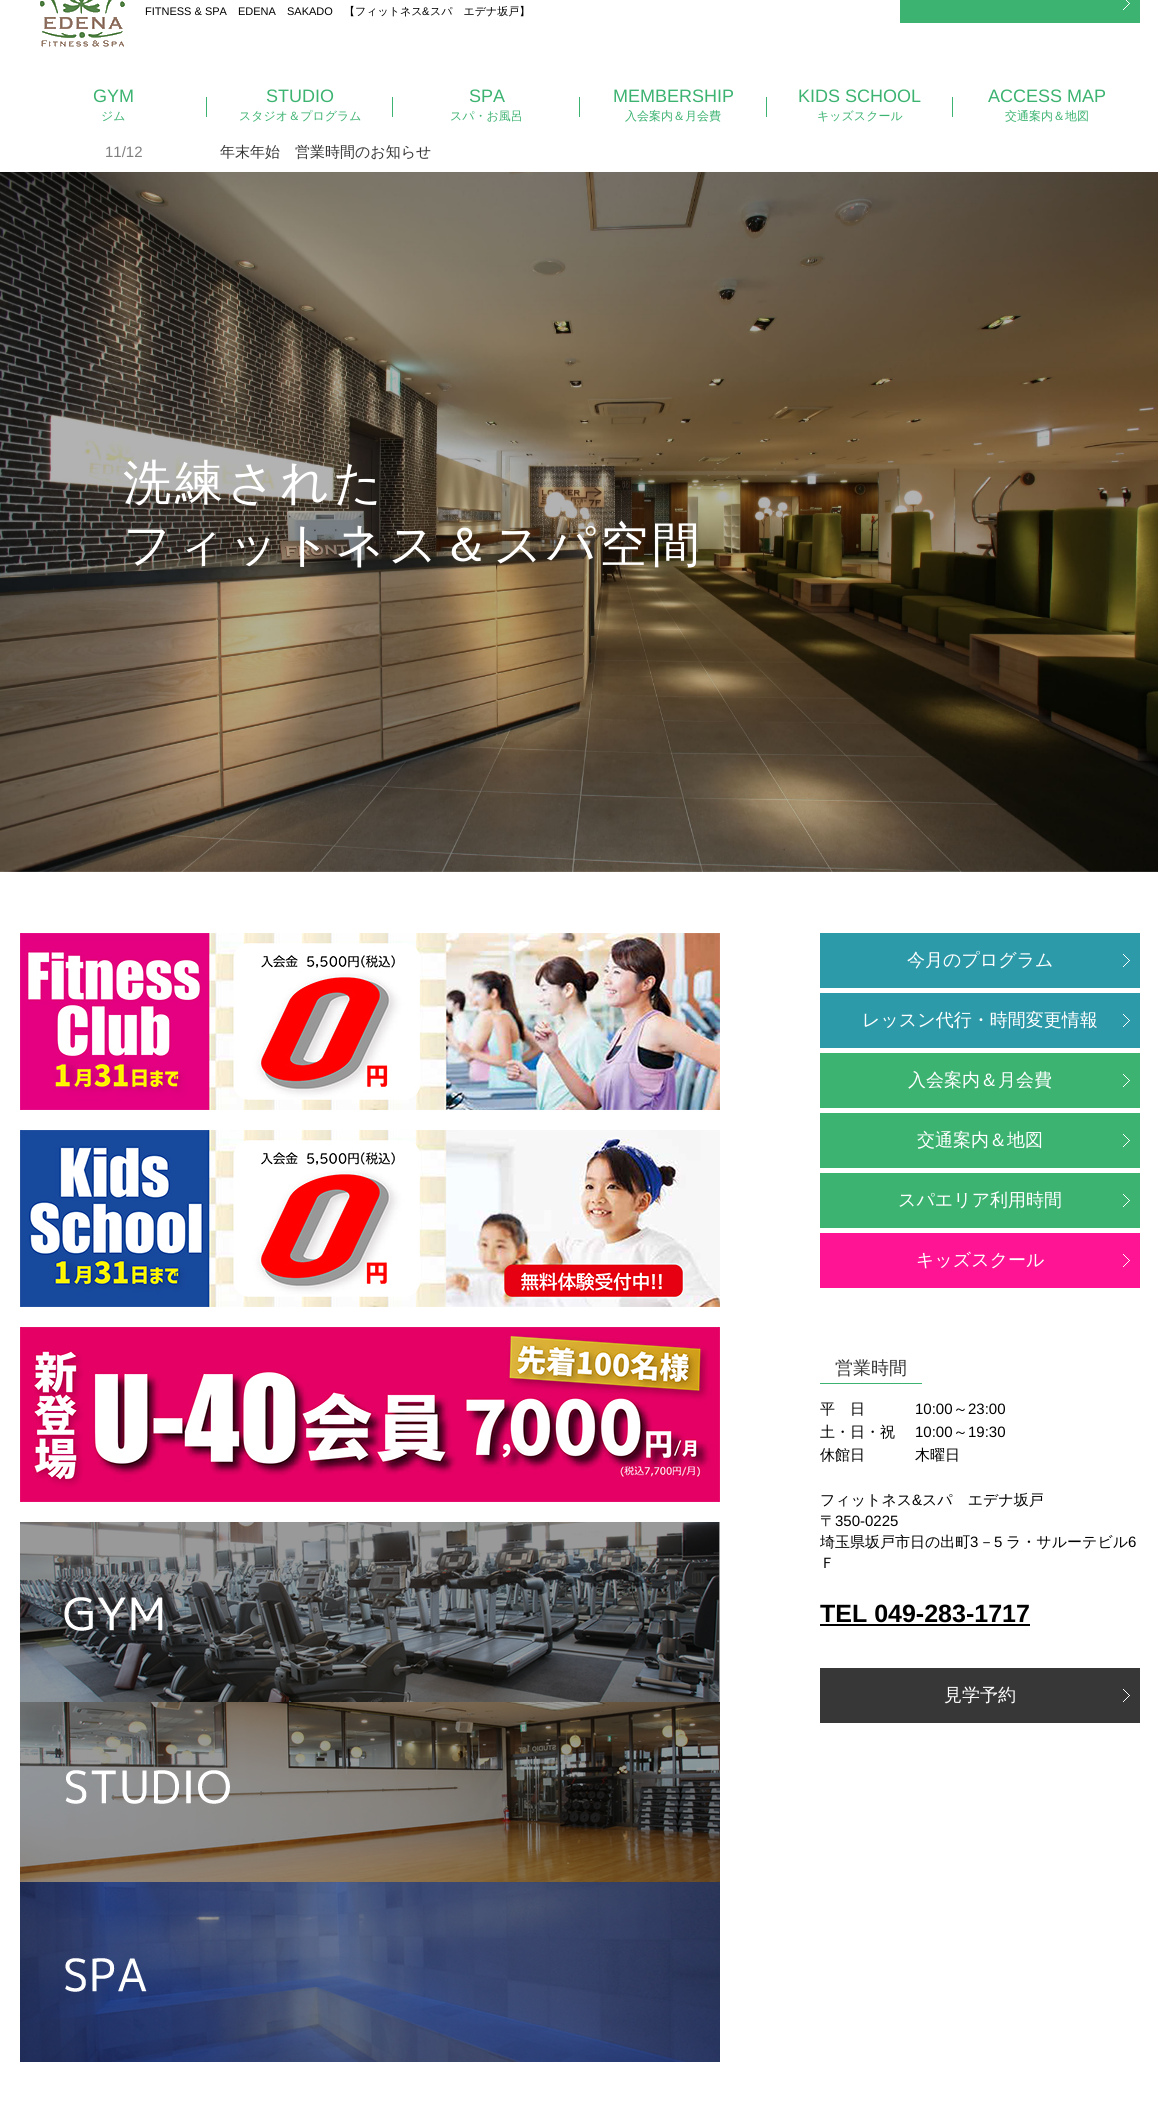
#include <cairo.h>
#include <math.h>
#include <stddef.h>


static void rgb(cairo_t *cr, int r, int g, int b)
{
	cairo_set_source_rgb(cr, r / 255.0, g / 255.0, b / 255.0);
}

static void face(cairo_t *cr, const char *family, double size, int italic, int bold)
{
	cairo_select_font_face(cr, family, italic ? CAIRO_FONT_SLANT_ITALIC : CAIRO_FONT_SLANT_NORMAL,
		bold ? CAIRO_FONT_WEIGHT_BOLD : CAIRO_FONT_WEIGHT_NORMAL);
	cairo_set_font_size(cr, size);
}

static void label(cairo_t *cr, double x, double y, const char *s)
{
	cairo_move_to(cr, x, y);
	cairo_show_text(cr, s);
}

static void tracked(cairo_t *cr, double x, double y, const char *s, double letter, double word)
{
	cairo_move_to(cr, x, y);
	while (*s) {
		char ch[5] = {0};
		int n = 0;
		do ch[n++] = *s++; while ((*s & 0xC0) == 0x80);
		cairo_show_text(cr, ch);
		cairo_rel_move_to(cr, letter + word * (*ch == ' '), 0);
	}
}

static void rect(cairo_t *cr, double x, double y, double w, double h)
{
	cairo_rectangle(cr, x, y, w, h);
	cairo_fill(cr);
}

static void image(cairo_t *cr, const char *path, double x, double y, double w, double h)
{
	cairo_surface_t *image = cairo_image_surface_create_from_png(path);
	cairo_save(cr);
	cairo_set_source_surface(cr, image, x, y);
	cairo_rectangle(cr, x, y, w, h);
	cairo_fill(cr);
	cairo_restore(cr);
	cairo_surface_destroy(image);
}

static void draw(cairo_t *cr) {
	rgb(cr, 255, 255, 255);
	cairo_paint(cr);
	image(cr, "image0.png", 40, 0, 85, 47);
	face(cr, "Liberation Sans", 11, 0, 0);
	rgb(cr, 0, 0, 0);
	label(cr, 145, 15, "FITNESS & SPA");
	label(cr, 238, 15, "EDENA");
	label(cr, 287, 15, "SAKADO");
	face(cr, "WenQuanYi Zen Hei Medium", 11, 0, 0);
	label(cr, 344, 15, "【フィットネス");
	face(cr, "Liberation Sans", 11, 0, 0);
	label(cr, 422, 15, "&");
	face(cr, "WenQuanYi Zen Hei Medium", 11, 0, 0);
	label(cr, 430, 15, "スパ　エデナ坂戸】");
	rgb(cr, 60, 179, 113);
	rect(cr, 900, 0, 240, 23);
	image(cr, "image1.png", 1123, 0, 7, 10);
	rect(cr, 206, 97, 1, 20);
	face(cr, "Liberation Sans", 18, 0, 0);
	label(cr, 93, 102, "GYM");
	face(cr, "WenQuanYi Zen Hei Medium", 12, 0, 0);
	label(cr, 101, 120, "ジム");
	rect(cr, 392, 97, 1, 20);
	face(cr, "Liberation Sans", 18, 0, 0);
	label(cr, 266, 102, "STUDIO");
	face(cr, "WenQuanYi Zen Hei Medium", 12, 0, 0);
	label(cr, 239, 120, "スタジオ＆プログラム");
	rect(cr, 579, 97, 1, 20);
	face(cr, "Liberation Sans", 18, 0, 0);
	label(cr, 469, 102, "SPA");
	face(cr, "WenQuanYi Zen Hei Medium", 12, 0, 0);
	label(cr, 450, 120, "スパ・お風呂");
	rect(cr, 766, 97, 1, 20);
	face(cr, "Liberation Sans", 18, 0, 0);
	label(cr, 613, 102, "MEMBERSHIP");
	face(cr, "WenQuanYi Zen Hei Medium", 12, 0, 0);
	label(cr, 625, 120, "入会案内＆月会費");
	rect(cr, 952, 97, 1, 20);
	face(cr, "Liberation Sans", 18, 0, 0);
	label(cr, 798, 102, "KIDS SCHOOL");
	face(cr, "WenQuanYi Zen Hei Medium", 12, 0, 0);
	label(cr, 817, 120, "キッズスクール");
	face(cr, "Liberation Sans", 18, 0, 0);
	label(cr, 988, 102, "ACCESS MAP");
	face(cr, "WenQuanYi Zen Hei Medium", 12, 0, 0);
	label(cr, 1005, 120, "交通案内＆地図");
	face(cr, "Liberation Sans", 15, 0, 0);
	rgb(cr, 128, 128, 128);
	label(cr, 105, 157, "11/12");
	face(cr, "WenQuanYi Zen Hei Medium", 15, 0, 0);
	rgb(cr, 55, 55, 55);
	label(cr, 220, 157, "年末年始　営業時間のお知らせ");
	image(cr, "image2.png", 0, 172, 1158, 700);
	face(cr, "WenQuanYi Zen Hei Medium", 48, 0, 0);
	rgb(cr, 255, 255, 255);
	tracked(cr, 123, 499, "洗練された", 4, 0);
	tracked(cr, 123, 561, "フィットネス＆スパ空間", 4, 0);
	image(cr, "image3.png", 20, 933, 700, 177);
	image(cr, "image4.png", 20, 1130, 700, 177);
	image(cr, "image5.png", 20, 1327, 700, 175);
	image(cr, "image6.png", 20, 1522, 700, 180);
	image(cr, "image7.png", 20, 1702, 700, 180);
	image(cr, "image8.png", 20, 1882, 700, 180);
	rgb(cr, 45, 154, 170);
	rect(cr, 820, 933, 320, 55);
	image(cr, "image9.png", 1123, 954, 7, 13);
	face(cr, "WenQuanYi Zen Hei Medium", 18, 0, 0);
	rgb(cr, 255, 255, 255);
	label(cr, 907, 966, "今月のプログラム");
	rgb(cr, 45, 154, 170);
	rect(cr, 820, 993, 320, 55);
	image(cr, "image9.png", 1123, 1014, 7, 13);
	rgb(cr, 255, 255, 255);
	label(cr, 862, 1026, "レッスン代行・時間変更情報");
	rgb(cr, 60, 179, 113);
	rect(cr, 820, 1053, 320, 55);
	image(cr, "image10.png", 1123, 1074, 7, 13);
	rgb(cr, 255, 255, 255);
	label(cr, 908, 1086, "入会案内＆月会費");
	rgb(cr, 60, 179, 113);
	rect(cr, 820, 1113, 320, 55);
	image(cr, "image10.png", 1123, 1134, 7, 13);
	rgb(cr, 255, 255, 255);
	label(cr, 917, 1146, "交通案内＆地図");
	rgb(cr, 60, 179, 113);
	rect(cr, 820, 1173, 320, 55);
	image(cr, "image10.png", 1123, 1194, 7, 13);
	rgb(cr, 255, 255, 255);
	label(cr, 898, 1206, "スパエリア利用時間");
	rgb(cr, 255, 20, 147);
	rect(cr, 820, 1233, 320, 55);
	image(cr, "image11.png", 1123, 1254, 7, 13);
	rgb(cr, 255, 255, 255);
	label(cr, 916, 1266, "キッズスクール");
	rgb(cr, 60, 179, 113);
	rect(cr, 820, 1383, 102, 1);
	rgb(cr, 55, 55, 55);
	label(cr, 835, 1374, "営業時間");
	face(cr, "WenQuanYi Zen Hei Medium", 15, 0, 0);
	rgb(cr, 0, 0, 0);
	label(cr, 820, 1414, "平");
	label(cr, 850, 1414, "日");
	face(cr, "Liberation Sans", 15, 0, 0);
	label(cr, 915, 1414, "10:00");
	face(cr, "WenQuanYi Zen Hei Medium", 15, 0, 0);
	label(cr, 953, 1414, "～");
	face(cr, "Liberation Sans", 15, 0, 0);
	label(cr, 968, 1414, "23:00");
	face(cr, "WenQuanYi Zen Hei Medium", 15, 0, 0);
	label(cr, 820, 1437, "土・日・祝");
	face(cr, "Liberation Sans", 15, 0, 0);
	label(cr, 915, 1437, "10:00");
	face(cr, "WenQuanYi Zen Hei Medium", 15, 0, 0);
	label(cr, 953, 1437, "～");
	face(cr, "Liberation Sans", 15, 0, 0);
	label(cr, 968, 1437, "19:30");
	face(cr, "WenQuanYi Zen Hei Medium", 15, 0, 0);
	label(cr, 820, 1460, "休館日");
	label(cr, 915, 1460, "木曜日");
	label(cr, 820, 1505, "フィットネス");
	face(cr, "Liberation Sans", 15, 0, 0);
	label(cr, 912, 1505, "&");
	face(cr, "WenQuanYi Zen Hei Medium", 15, 0, 0);
	label(cr, 922, 1505, "スパ　エデナ坂戸");
	label(cr, 820, 1526, "〒");
	face(cr, "Liberation Sans", 15, 0, 0);
	label(cr, 835, 1526, "350‐0225");
	face(cr, "WenQuanYi Zen Hei Medium", 15, 0, 0);
	label(cr, 820, 1547, "埼玉県坂戸市日の出町");
	face(cr, "Liberation Sans", 15, 0, 0);
	label(cr, 970, 1547, "3");
	face(cr, "WenQuanYi Zen Hei Medium", 15, 0, 0);
	label(cr, 979, 1547, "－");
	face(cr, "Liberation Sans", 15, 0, 0);
	label(cr, 994, 1547, "5");
	face(cr, "WenQuanYi Zen Hei Medium", 15, 0, 0);
	label(cr, 1006, 1547, "ラ・サルーテビル");
	face(cr, "Liberation Sans", 15, 0, 0);
	label(cr, 1128, 1547, "6");
	face(cr, "WenQuanYi Zen Hei Medium", 15, 0, 0);
	label(cr, 820, 1568, "Ｆ");
	face(cr, "Liberation Sans", 25, 0, 1);
	label(cr, 820, 1622, "TEL 049-283-1717");
	rect(cr, 820, 1624, 210, 2);
	rgb(cr, 55, 55, 55);
	rect(cr, 820, 1668, 320, 55);
	image(cr, "image12.png", 1123, 1689, 7, 13);
	face(cr, "WenQuanYi Zen Hei Medium", 18, 0, 0);
	rgb(cr, 255, 255, 255);
	label(cr, 944, 1701, "見学予約");
}

int main(void) {
	cairo_surface_t *surface = cairo_image_surface_create(CAIRO_FORMAT_RGB24, 1158, 2118);
	cairo_t *cr = cairo_create(surface);
	cairo_font_options_t *options = cairo_font_options_create();
	cairo_font_options_set_hint_metrics(options, CAIRO_HINT_METRICS_OFF);
	cairo_font_options_set_hint_style(options, CAIRO_HINT_STYLE_NONE);
	cairo_set_font_options(cr, options);
	cairo_set_miter_limit(cr, 4);
	draw(cr);
	cairo_surface_write_to_png(surface, "render.png");
	cairo_font_options_destroy(options);
	cairo_destroy(cr);
	cairo_surface_destroy(surface);
	return 0;
}
